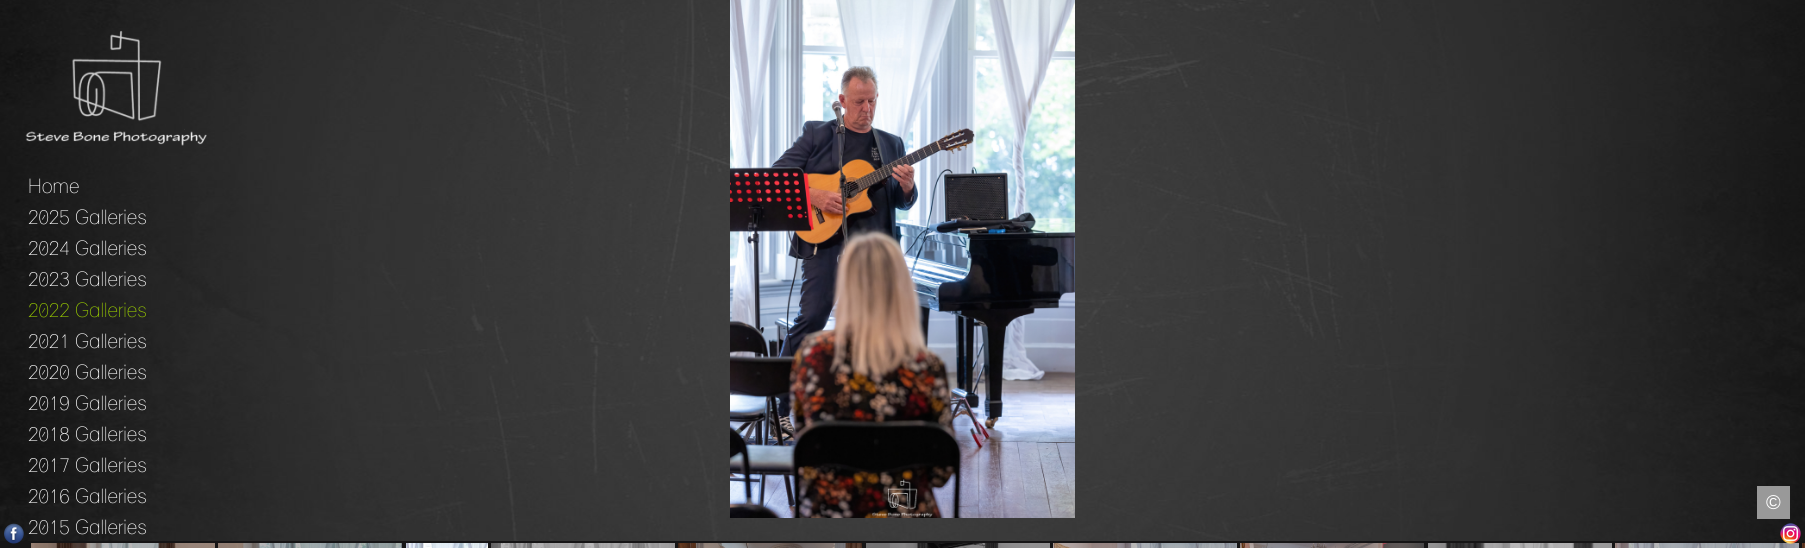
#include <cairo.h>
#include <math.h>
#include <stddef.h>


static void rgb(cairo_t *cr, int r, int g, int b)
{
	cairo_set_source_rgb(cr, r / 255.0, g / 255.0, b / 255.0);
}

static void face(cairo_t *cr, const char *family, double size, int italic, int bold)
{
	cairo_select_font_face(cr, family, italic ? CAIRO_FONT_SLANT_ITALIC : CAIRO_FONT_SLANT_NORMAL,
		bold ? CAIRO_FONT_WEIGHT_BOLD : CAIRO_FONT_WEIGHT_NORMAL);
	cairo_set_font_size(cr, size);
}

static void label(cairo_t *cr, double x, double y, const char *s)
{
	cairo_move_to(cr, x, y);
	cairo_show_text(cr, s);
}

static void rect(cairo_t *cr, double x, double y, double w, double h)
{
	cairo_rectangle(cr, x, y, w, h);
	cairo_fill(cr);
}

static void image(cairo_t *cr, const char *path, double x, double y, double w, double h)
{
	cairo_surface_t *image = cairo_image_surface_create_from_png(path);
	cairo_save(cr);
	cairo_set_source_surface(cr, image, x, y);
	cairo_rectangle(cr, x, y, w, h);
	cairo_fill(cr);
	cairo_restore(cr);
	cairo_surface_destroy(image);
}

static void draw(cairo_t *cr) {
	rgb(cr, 255, 255, 255);
	cairo_paint(cr);
	image(cr, "image0.png", 0, 0, 1805, 541);
	image(cr, "image1.png", 730, 0, 345, 518);
	rgb(cr, 22, 21, 22);
	rect(cr, 0, 541, 1805, 7);
	image(cr, "image2.png", 31, 543, 184, 5);
	image(cr, "image3.png", 218, 543, 184, 5);
	image(cr, "image4.png", 406, 543, 82, 5);
	image(cr, "image5.png", 491, 543, 184, 5);
	image(cr, "image6.png", 678, 543, 184, 5);
	image(cr, "image7.png", 866, 543, 184, 5);
	image(cr, "image8.png", 1053, 543, 184, 5);
	image(cr, "image9.png", 1240, 543, 184, 5);
	image(cr, "image10.png", 1428, 543, 184, 5);
	image(cr, "image11.png", 1615, 543, 184, 5);
	image(cr, "image12.png", 1802, 543, 3, 5);
	image(cr, "image13.png", 21, 30, 186, 116);
	face(cr, "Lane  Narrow", 20, 0, 0);
	rgb(cr, 255, 255, 255);
	label(cr, 28, 193, "Home");
	label(cr, 28, 224, "2025 Galleries");
	label(cr, 28, 255, "2024 Galleries");
	label(cr, 28, 286, "2023 Galleries");
	rgb(cr, 153, 204, 0);
	label(cr, 28, 317, "2022 Galleries");
	rgb(cr, 255, 255, 255);
	label(cr, 28, 348, "2021 Galleries");
	label(cr, 28, 379, "2020 Galleries");
	label(cr, 28, 410, "2019 Galleries");
	label(cr, 28, 441, "2018 Galleries");
	label(cr, 28, 472, "2017 Galleries");
	label(cr, 28, 503, "2016 Galleries");
	label(cr, 28, 534, "2015 Galleries");
	rgb(cr, 153, 153, 153);
	rect(cr, 1757, 486, 33, 33);
	face(cr, "Liberation Sans", 20, 0, 0);
	rgb(cr, 255, 255, 255);
	label(cr, 1766, 509, "©");
	image(cr, "image14.png", 4, 523, 20, 21);
	image(cr, "image15.png", 1780, 523, 21, 21);
}

int main(void) {
	cairo_surface_t *surface = cairo_image_surface_create(CAIRO_FORMAT_RGB24, 1805, 548);
	cairo_t *cr = cairo_create(surface);
	cairo_font_options_t *options = cairo_font_options_create();
	cairo_font_options_set_hint_metrics(options, CAIRO_HINT_METRICS_OFF);
	cairo_font_options_set_hint_style(options, CAIRO_HINT_STYLE_NONE);
	cairo_set_font_options(cr, options);
	cairo_set_miter_limit(cr, 4);
	draw(cr);
	cairo_surface_write_to_png(surface, "render.png");
	cairo_font_options_destroy(options);
	cairo_destroy(cr);
	cairo_surface_destroy(surface);
	return 0;
}
